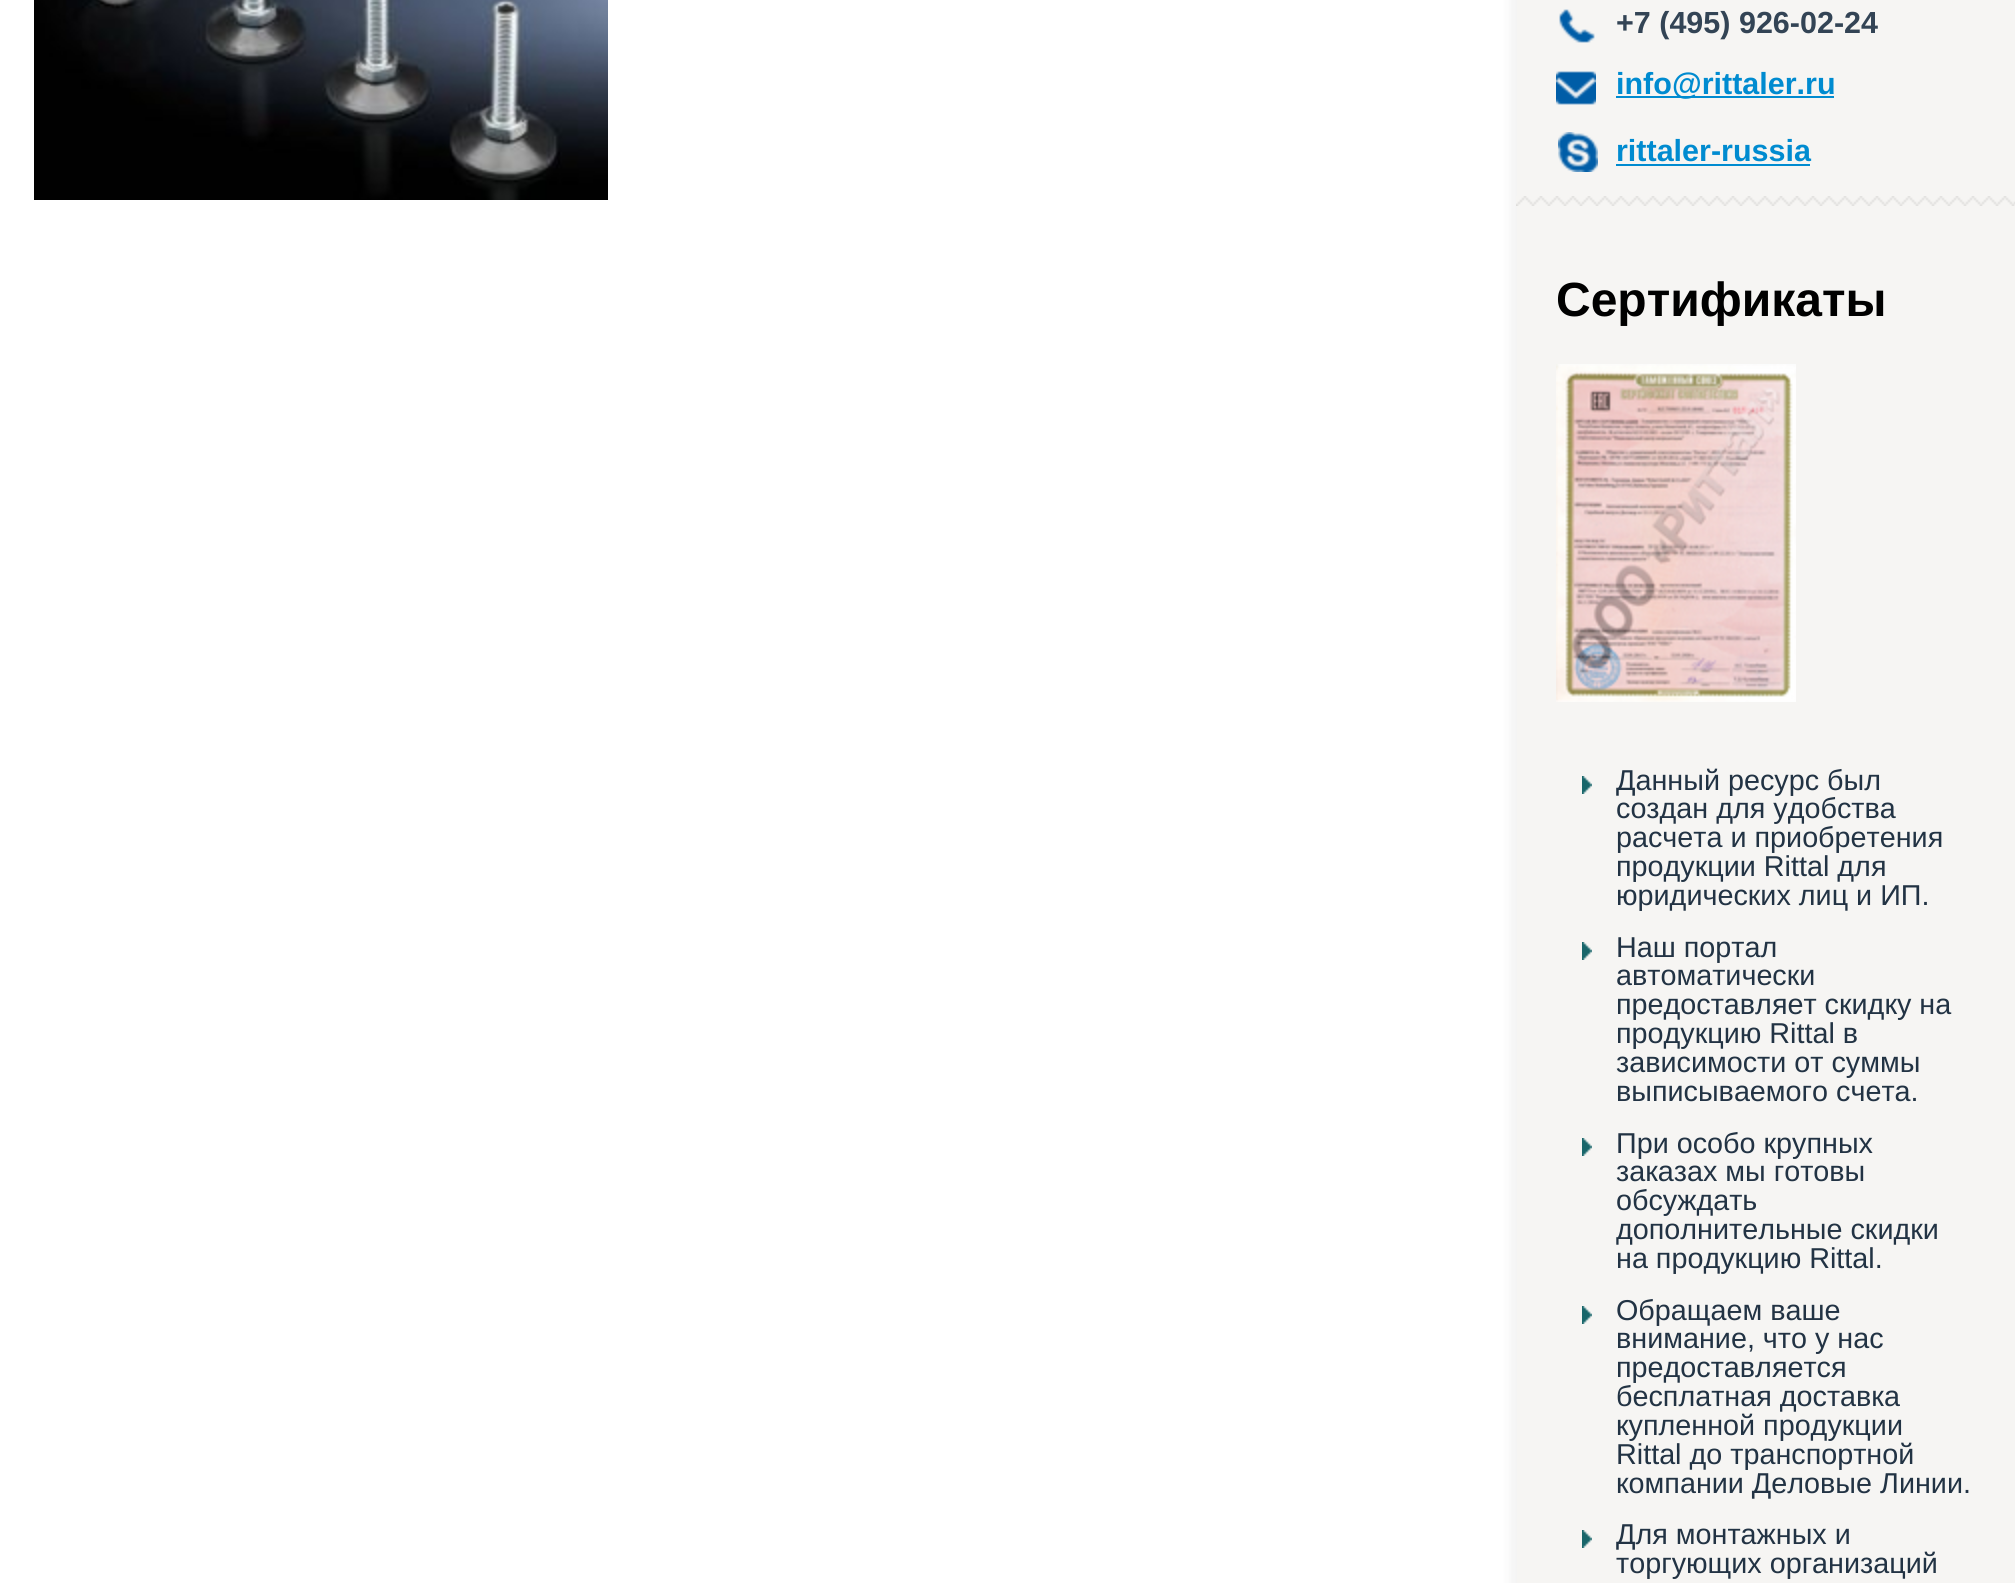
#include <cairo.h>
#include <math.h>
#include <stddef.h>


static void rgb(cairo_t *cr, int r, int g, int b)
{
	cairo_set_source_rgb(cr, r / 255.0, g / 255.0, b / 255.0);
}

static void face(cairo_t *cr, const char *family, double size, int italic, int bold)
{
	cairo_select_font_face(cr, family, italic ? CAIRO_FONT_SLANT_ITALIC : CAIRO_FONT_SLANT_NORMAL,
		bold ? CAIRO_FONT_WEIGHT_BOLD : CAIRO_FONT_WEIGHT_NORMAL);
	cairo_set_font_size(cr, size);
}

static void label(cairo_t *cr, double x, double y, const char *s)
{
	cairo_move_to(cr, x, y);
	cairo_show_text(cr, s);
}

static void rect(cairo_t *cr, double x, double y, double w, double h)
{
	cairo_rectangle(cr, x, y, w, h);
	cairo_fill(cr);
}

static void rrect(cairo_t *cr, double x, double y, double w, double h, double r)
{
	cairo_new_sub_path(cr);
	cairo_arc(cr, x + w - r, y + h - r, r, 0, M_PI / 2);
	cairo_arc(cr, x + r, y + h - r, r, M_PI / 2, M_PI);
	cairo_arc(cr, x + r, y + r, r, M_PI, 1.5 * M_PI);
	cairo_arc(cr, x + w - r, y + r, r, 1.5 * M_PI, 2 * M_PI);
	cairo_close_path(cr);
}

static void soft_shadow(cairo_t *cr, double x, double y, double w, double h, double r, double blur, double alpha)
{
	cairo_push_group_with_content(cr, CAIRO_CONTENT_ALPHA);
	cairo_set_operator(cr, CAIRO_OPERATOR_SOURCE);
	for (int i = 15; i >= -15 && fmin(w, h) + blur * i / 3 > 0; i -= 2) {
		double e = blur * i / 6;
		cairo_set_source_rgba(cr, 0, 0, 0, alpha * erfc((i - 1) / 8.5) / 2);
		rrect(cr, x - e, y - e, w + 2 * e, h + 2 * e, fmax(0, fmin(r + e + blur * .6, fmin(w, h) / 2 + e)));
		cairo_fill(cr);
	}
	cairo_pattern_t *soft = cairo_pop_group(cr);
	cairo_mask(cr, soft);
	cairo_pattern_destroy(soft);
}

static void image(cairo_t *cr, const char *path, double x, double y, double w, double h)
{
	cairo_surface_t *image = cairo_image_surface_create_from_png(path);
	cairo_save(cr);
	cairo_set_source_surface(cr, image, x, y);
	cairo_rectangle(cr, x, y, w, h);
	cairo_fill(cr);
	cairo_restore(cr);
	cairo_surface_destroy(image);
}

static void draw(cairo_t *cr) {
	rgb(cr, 255, 255, 255);
	cairo_paint(cr);
	image(cr, "image0.png", 34, 0, 574, 200);
	rgb(cr, 0, 0, 0);
	soft_shadow(cr, 1510, -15, 500, 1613, 0, 5, 0.05);
	rgb(cr, 246, 245, 243);
	rect(cr, 1517, 0, 498, 1583);
	image(cr, "image1.png", 1559, 9, 36, 34);
	face(cr, "Liberation Sans", 30.5, 0, 1);
	rgb(cr, 51, 68, 85);
	label(cr, 1616, 33, "+7 (495) 926-02-24");
	image(cr, "image2.png", 1556, 71, 40, 34);
	rgb(cr, 0, 139, 208);
	rect(cr, 1616, 96, 218, 2);
	label(cr, 1616, 94, "info@rittaler.ru");
	image(cr, "image3.png", 1558, 132, 40, 40);
	label(cr, 1616, 161, "rittaler-russia");
	rect(cr, 1616, 164, 194, 2);
	image(cr, "image4.png", 1516, 196, 499, 10);
	face(cr, "Liberation Sans", 48, 0, 1);
	rgb(cr, 0, 0, 0);
	label(cr, 1556, 316, "Сертификаты");
	image(cr, "image5.png", 1556, 364, 240, 338);
	image(cr, "image6.png", 1582, 776, 10, 18);
	face(cr, "Liberation Sans", 28.75, 0, 0);
	rgb(cr, 34, 51, 68);
	label(cr, 1616, 790, "Данный ресурс был");
	label(cr, 1616, 818, "создан для удобства");
	label(cr, 1616, 847, "расчета и приобретения");
	label(cr, 1616, 876, "продукции Rittal для");
	label(cr, 1616, 905, "юридических лиц и ИП.");
	image(cr, "image6.png", 1582, 942, 10, 18);
	label(cr, 1616, 957, "Наш портал");
	label(cr, 1616, 985, "автоматически");
	label(cr, 1616, 1014, "предоставляет скидку на");
	label(cr, 1616, 1043, "продукцию Rittal в");
	label(cr, 1616, 1072, "зависимости от суммы");
	label(cr, 1616, 1101, "выписываемого счета.");
	image(cr, "image6.png", 1582, 1138, 10, 18);
	label(cr, 1616, 1153, "При особо крупных");
	label(cr, 1616, 1181, "заказах мы готовы");
	label(cr, 1616, 1210, "обсуждать");
	label(cr, 1616, 1239, "дополнительные скидки");
	label(cr, 1616, 1268, "на продукцию Rittal.");
	image(cr, "image6.png", 1582, 1306, 10, 18);
	label(cr, 1616, 1320, "Обращаем ваше");
	label(cr, 1616, 1348, "внимание, что у нас");
	label(cr, 1616, 1377, "предоставляется");
	label(cr, 1616, 1406, "бесплатная доставка");
	label(cr, 1616, 1435, "купленной продукции");
	label(cr, 1616, 1464, "Rittal до транспортной");
	label(cr, 1616, 1493, "компании Деловые Линии.");
	image(cr, "image6.png", 1582, 1530, 10, 18);
	label(cr, 1616, 1544, "Для монтажных и");
	label(cr, 1616, 1573, "торгующих организаций");
}

int main(void) {
	cairo_surface_t *surface = cairo_image_surface_create(CAIRO_FORMAT_RGB24, 2015, 1583);
	cairo_t *cr = cairo_create(surface);
	cairo_font_options_t *options = cairo_font_options_create();
	cairo_font_options_set_hint_metrics(options, CAIRO_HINT_METRICS_OFF);
	cairo_font_options_set_hint_style(options, CAIRO_HINT_STYLE_NONE);
	cairo_set_font_options(cr, options);
	cairo_set_miter_limit(cr, 4);
	draw(cr);
	cairo_surface_write_to_png(surface, "render.png");
	cairo_font_options_destroy(options);
	cairo_destroy(cr);
	cairo_surface_destroy(surface);
	return 0;
}
